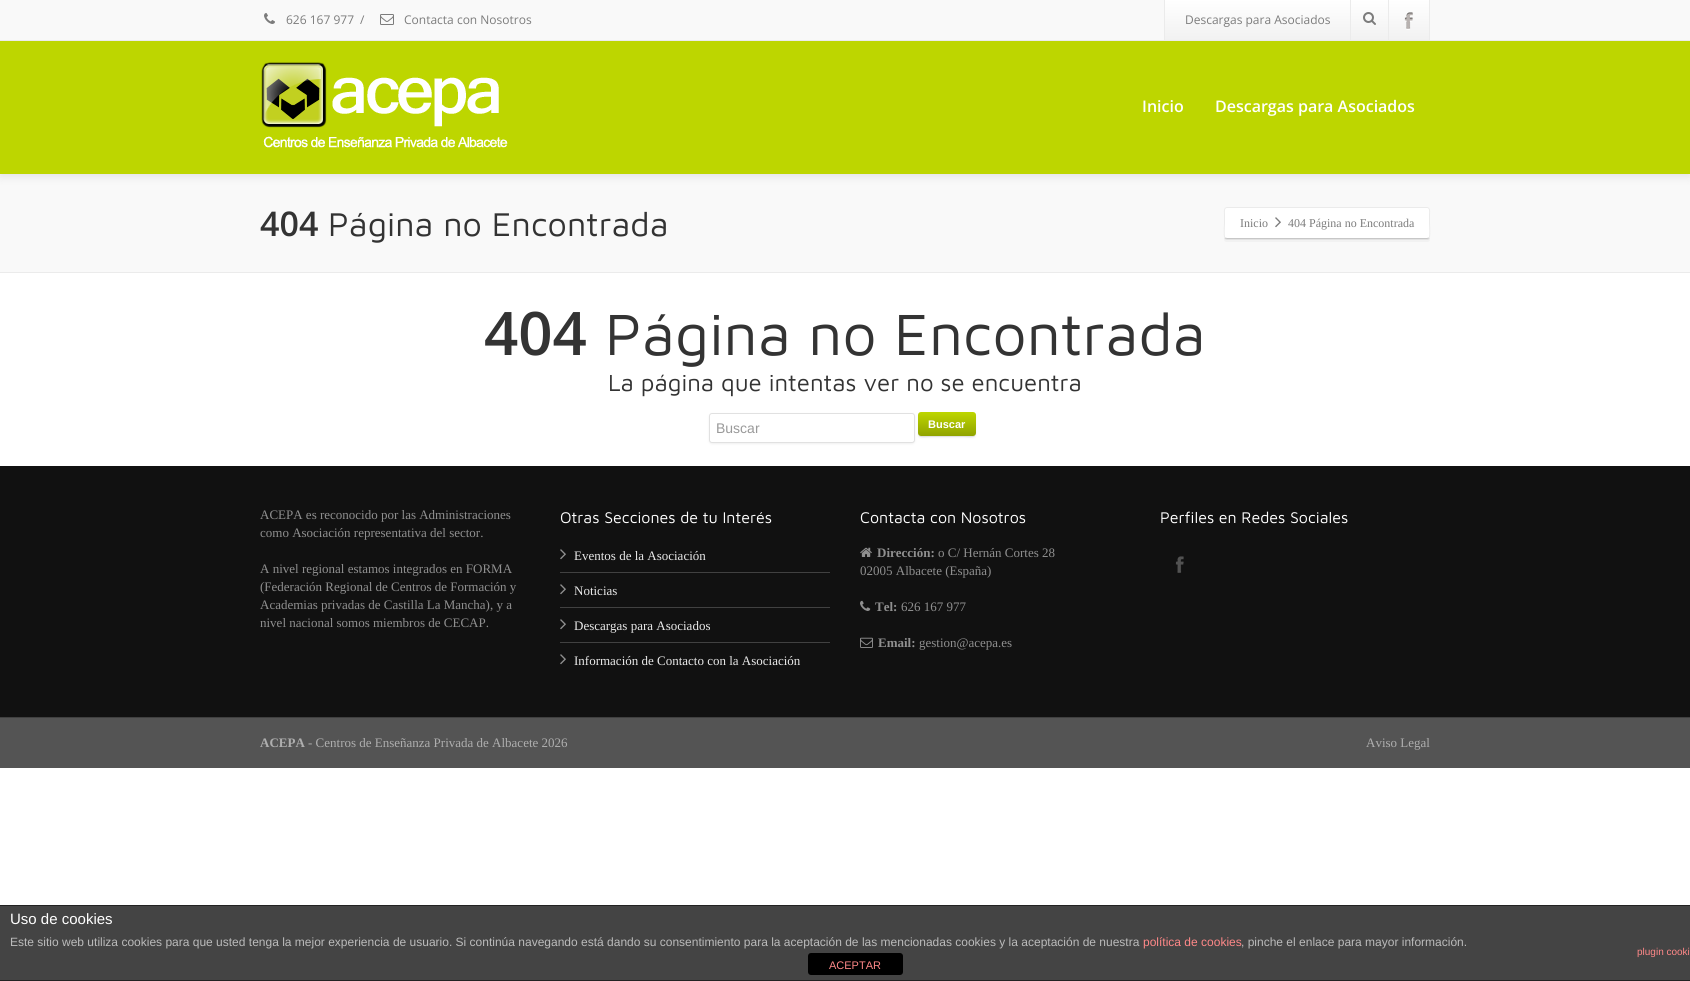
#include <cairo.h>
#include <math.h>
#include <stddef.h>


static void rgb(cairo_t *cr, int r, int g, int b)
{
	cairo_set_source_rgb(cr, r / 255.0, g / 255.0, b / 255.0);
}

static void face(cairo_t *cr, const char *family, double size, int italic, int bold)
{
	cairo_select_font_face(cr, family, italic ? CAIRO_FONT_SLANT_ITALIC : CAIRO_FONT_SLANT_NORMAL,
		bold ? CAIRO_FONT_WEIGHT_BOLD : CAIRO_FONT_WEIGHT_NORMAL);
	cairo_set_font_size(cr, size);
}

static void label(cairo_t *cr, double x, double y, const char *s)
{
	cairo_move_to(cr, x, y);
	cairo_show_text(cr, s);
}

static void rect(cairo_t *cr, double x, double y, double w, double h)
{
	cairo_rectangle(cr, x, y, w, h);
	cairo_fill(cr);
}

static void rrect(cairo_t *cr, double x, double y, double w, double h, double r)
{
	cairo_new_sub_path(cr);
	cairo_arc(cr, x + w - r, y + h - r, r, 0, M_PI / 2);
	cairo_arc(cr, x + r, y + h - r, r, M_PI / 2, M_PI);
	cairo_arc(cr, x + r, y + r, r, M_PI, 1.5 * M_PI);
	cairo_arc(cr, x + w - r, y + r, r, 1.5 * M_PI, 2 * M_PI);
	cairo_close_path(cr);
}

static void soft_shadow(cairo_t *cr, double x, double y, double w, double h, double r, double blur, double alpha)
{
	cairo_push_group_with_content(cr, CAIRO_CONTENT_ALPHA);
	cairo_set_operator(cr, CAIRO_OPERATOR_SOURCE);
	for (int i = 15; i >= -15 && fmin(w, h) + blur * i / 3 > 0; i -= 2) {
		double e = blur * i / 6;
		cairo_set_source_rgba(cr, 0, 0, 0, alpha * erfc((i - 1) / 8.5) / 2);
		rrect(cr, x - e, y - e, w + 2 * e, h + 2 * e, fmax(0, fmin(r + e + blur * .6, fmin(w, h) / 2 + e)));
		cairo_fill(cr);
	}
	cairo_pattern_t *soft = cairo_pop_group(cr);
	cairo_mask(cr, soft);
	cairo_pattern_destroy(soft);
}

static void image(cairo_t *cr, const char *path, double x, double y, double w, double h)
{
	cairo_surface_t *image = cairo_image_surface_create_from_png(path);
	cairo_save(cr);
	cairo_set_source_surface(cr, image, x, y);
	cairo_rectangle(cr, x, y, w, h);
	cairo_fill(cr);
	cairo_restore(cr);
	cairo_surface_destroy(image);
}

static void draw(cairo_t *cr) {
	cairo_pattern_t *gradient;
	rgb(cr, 255, 255, 255);
	cairo_paint(cr);
	rgb(cr, 249, 249, 249);
	rect(cr, 0, 174, 1690, 98);
	rgb(cr, 0, 0, 0);
	soft_shadow(cr, 0, 43, 1690, 133, 0, 5, 0.1);
	rgb(cr, 249, 249, 249);
	rect(cr, 0, 0, 1690, 40);
	rgb(cr, 235, 235, 235);
	rect(cr, 0, 40, 1690, 1);
	image(cr, "image0.png", 264, 13, 11, 11);
	face(cr, "Open Sans", 12, 0, 0);
	rgb(cr, 124, 124, 124);
	label(cr, 286, 24, "626 167 977");
	label(cr, 360, 24, "/");
	image(cr, "image1.png", 380, 14, 14, 11);
	label(cr, 404, 24, "Contacta con Nosotros");
	gradient = cairo_pattern_create_linear(1258, 0, 1258, 40);
	cairo_pattern_add_color_stop_rgba(gradient, 0, 1, 1, 1, 1);
	cairo_pattern_add_color_stop_rgba(gradient, 1, 0.945, 0.945, 0.945, 1);
	cairo_set_source(cr, gradient);
	cairo_pattern_destroy(gradient);
	rect(cr, 1165, 0, 185, 40);
	rgb(cr, 235, 235, 235);
	rect(cr, 1350, 0, 1, 40);
	rect(cr, 1164, 0, 1, 40);
	rgb(cr, 124, 124, 124);
	label(cr, 1185, 24, "Descargas para Asociados");
	gradient = cairo_pattern_create_linear(1370, 0, 1370, 40);
	cairo_pattern_add_color_stop_rgba(gradient, 0, 1, 1, 1, 1);
	cairo_pattern_add_color_stop_rgba(gradient, 1, 0.945, 0.945, 0.945, 1);
	cairo_set_source(cr, gradient);
	cairo_pattern_destroy(gradient);
	rect(cr, 1351, 0, 37, 40);
	image(cr, "image2.png", 1363, 12, 13, 13);
	gradient = cairo_pattern_create_linear(1409, 0, 1409, 40);
	cairo_pattern_add_color_stop_rgba(gradient, 0, 1, 1, 1, 1);
	cairo_pattern_add_color_stop_rgba(gradient, 1, 0.945, 0.945, 0.945, 1);
	cairo_set_source(cr, gradient);
	cairo_pattern_destroy(gradient);
	rect(cr, 1389, 0, 40, 40);
	rgb(cr, 235, 235, 235);
	rect(cr, 1429, 0, 1, 40);
	rect(cr, 1388, 0, 1, 40);
	image(cr, "image3.png", 1404, 12, 9, 18);
	rgb(cr, 189, 214, 0);
	rect(cr, 0, 41, 1690, 133);
	image(cr, "image4.png", 261, 62, 247, 86);
	face(cr, "Open Sans SemiBold", 16, 0, 0);
	rgb(cr, 255, 255, 255);
	label(cr, 1142, 112, "Inicio");
	label(cr, 1215, 112, "Descargas para Asociados");
	rgb(cr, 235, 235, 235);
	rect(cr, 0, 272, 1690, 1);
	face(cr, "Open Sans SemiBold", 34, 0, 0);
	rgb(cr, 51, 51, 51);
	label(cr, 260, 236, "404");
	face(cr, "Maven Pro", 34, 0, 0);
	label(cr, 328, 236, "Página no Encontrada");
	rgb(cr, 232, 232, 232);
	cairo_new_path(cr);
	cairo_move_to(cr, 1224, 236);
	cairo_curve_to(cr, 1224, 238, 1225, 240, 1227, 240);
	cairo_line_to(cr, 1428, 240);
	cairo_curve_to(cr, 1430, 239, 1430, 238, 1430, 236);
	cairo_curve_to(cr, 1430, 238, 1429, 239, 1427, 239);
	cairo_line_to(cr, 1227, 239);
	cairo_line_to(cr, 1225, 238);
	cairo_close_path(cr);
	cairo_fill(cr);
	cairo_set_source_rgba(cr, 0, 0, 0, 0.03);
	cairo_new_path(cr);
	cairo_move_to(cr, 1224, 236);
	cairo_line_to(cr, 1224, 239);
	cairo_curve_to(cr, 1224, 241, 1225, 242, 1227, 242);
	cairo_line_to(cr, 1427, 242);
	cairo_curve_to(cr, 1429, 242, 1430, 241, 1430, 239);
	cairo_line_to(cr, 1430, 236);
	cairo_curve_to(cr, 1430, 238, 1429, 239, 1427, 239);
	cairo_line_to(cr, 1227, 239);
	cairo_line_to(cr, 1225, 238);
	cairo_close_path(cr);
	cairo_fill(cr);
	rgb(cr, 255, 255, 255);
	rrect(cr, 1224, 207, 206, 32, 3);
	cairo_fill(cr);
	cairo_new_path(cr);
	cairo_move_to(cr, 1429, 238);
	cairo_line_to(cr, 1427, 238.5);
	cairo_line_to(cr, 1227, 238.5);
	cairo_line_to(cr, 1225, 238);
	cairo_set_source_rgba(cr, 0, 0, 0, 0.22);
	cairo_set_line_width(cr, 1);
	cairo_stroke(cr);
	cairo_new_path(cr);
	cairo_move_to(cr, 1225, 238);
	cairo_curve_to(cr, 1223.5, 236, 1224.5, 225.5, 1224.5, 223);
	cairo_line_to(cr, 1224.5, 214.5);
	cairo_curve_to(cr, 1224.5, 212.5, 1223.5, 207.5, 1227, 207.5);
	cairo_line_to(cr, 1427, 207.5);
	cairo_curve_to(cr, 1430.5, 207.5, 1429.5, 212.5, 1429.5, 214.5);
	cairo_line_to(cr, 1429.5, 223);
	cairo_curve_to(cr, 1429.5, 225.5, 1430.5, 236, 1429, 238);
	rgb(cr, 235, 235, 235);
	cairo_stroke(cr);
	face(cr, "Liberation Serif", 12, 0, 0);
	rgb(cr, 124, 124, 124);
	label(cr, 1240, 227, "Inicio");
	image(cr, "image5.png", 1275, 217, 6, 11);
	label(cr, 1288, 227, "404 Página no Encontrada");
	face(cr, "Open Sans SemiBold", 60, 0, 0);
	rgb(cr, 51, 51, 51);
	label(cr, 484, 355, "404");
	face(cr, "Maven Pro", 60, 0, 0);
	label(cr, 605, 355, "Página no Encontrada");
	face(cr, "Maven Pro", 24, 0, 0);
	label(cr, 608, 391, "La página que intentas ver no se encuentra");
	rgb(cr, 180, 180, 180);
	soft_shadow(cr, 709, 414, 206, 30, 3, 1, 0.2);
	rgb(cr, 255, 255, 255);
	rrect(cr, 709.5, 413.5, 205, 29, 2.5);
	cairo_fill_preserve(cr);
	rgb(cr, 225, 225, 225);
	cairo_stroke(cr);
	face(cr, "Liberation Sans", 14, 0, 0);
	rgb(cr, 153, 153, 153);
	label(cr, 716, 433, "Buscar");
	rgb(cr, 235, 235, 235);
	cairo_new_path(cr);
	cairo_move_to(cr, 918, 433);
	cairo_curve_to(cr, 918, 439, 925, 437, 930, 437);
	cairo_line_to(cr, 964, 437);
	cairo_curve_to(cr, 969, 437, 976, 439, 976, 433);
	cairo_curve_to(cr, 976, 435, 975, 436, 973, 436);
	cairo_line_to(cr, 921, 436);
	cairo_curve_to(cr, 919, 436, 918, 435, 918, 433);
	cairo_close_path(cr);
	cairo_fill(cr);
	rgb(cr, 0, 0, 0);
	soft_shadow(cr, 918, 414, 58, 24, 3, 1, 0.05);
	gradient = cairo_pattern_create_linear(947, 412, 947, 436);
	cairo_pattern_add_color_stop_rgba(gradient, 0, 0.745, 0.839, 0, 1);
	cairo_pattern_add_color_stop_rgba(gradient, 1, 0.565, 0.639, 0, 1);
	cairo_set_source(cr, gradient);
	cairo_pattern_destroy(gradient);
	rrect(cr, 918, 412, 58, 24, 3);
	cairo_fill(cr);
	face(cr, "Liberation Sans", 11, 0, 1);
	rgb(cr, 255, 255, 255);
	label(cr, 928, 428, "Buscar");
	rgb(cr, 17, 17, 17);
	rect(cr, 0, 466, 1690, 251);
	face(cr, "Liberation Serif", 13, 0, 0);
	rgb(cr, 143, 143, 143);
	label(cr, 260, 519, "ACEPA es reconocido por las Administraciones");
	label(cr, 260, 537, "como Asociación representativa del sector.");
	label(cr, 260, 573, "A nivel regional estamos integrados en FORMA");
	label(cr, 260, 591, "(Federación Regional de Centros de Formación y");
	label(cr, 260, 609, "Academias privadas de Castilla La Mancha), y a");
	label(cr, 260, 627, "nivel nacional somos miembros de CECAP.");
	face(cr, "Maven Pro", 16, 0, 0);
	rgb(cr, 255, 255, 255);
	label(cr, 560, 523, "Otras Secciones de tu Interés");
	rgb(cr, 65, 65, 65);
	rect(cr, 560, 572, 270, 1);
	image(cr, "image6.png", 560, 549, 6, 11);
	face(cr, "Liberation Serif", 13, 0, 0);
	rgb(cr, 232, 232, 232);
	label(cr, 574, 560, "Eventos de la Asociación");
	rgb(cr, 65, 65, 65);
	rect(cr, 560, 607, 270, 1);
	image(cr, "image6.png", 560, 584, 6, 11);
	rgb(cr, 232, 232, 232);
	label(cr, 574, 595, "Noticias");
	rgb(cr, 65, 65, 65);
	rect(cr, 560, 642, 270, 1);
	image(cr, "image6.png", 560, 619, 6, 11);
	rgb(cr, 232, 232, 232);
	label(cr, 574, 630, "Descargas para Asociados");
	image(cr, "image6.png", 560, 654, 6, 11);
	label(cr, 574, 665, "Información de Contacto con la Asociación");
	face(cr, "Maven Pro", 16, 0, 0);
	rgb(cr, 255, 255, 255);
	label(cr, 860, 523, "Contacta con Nosotros");
	image(cr, "image7.png", 860, 547, 12, 10);
	face(cr, "Liberation Serif", 13, 0, 1);
	rgb(cr, 143, 143, 143);
	label(cr, 877, 557, "Dirección:");
	face(cr, "Liberation Serif", 13, 0, 0);
	label(cr, 938, 557, "o C/ Hernán Cortes 28");
	label(cr, 860, 575, "02005 Albacete (España)");
	image(cr, "image8.png", 860, 600, 11, 11);
	face(cr, "Liberation Serif", 13, 0, 1);
	label(cr, 875, 611, "Tel:");
	face(cr, "Liberation Serif", 13, 0, 0);
	label(cr, 901, 611, "626 167 977");
	image(cr, "image9.png", 860, 637, 13, 11);
	face(cr, "Liberation Serif", 13, 0, 1);
	label(cr, 878, 647, "Email:");
	face(cr, "Liberation Serif", 13, 0, 0);
	label(cr, 919, 647, "gestion@acepa.es");
	face(cr, "Maven Pro", 16, 0, 0);
	rgb(cr, 255, 255, 255);
	label(cr, 1160, 523, "Perfiles en Redes Sociales");
	image(cr, "image10.png", 1175, 556, 9, 17);
	rgb(cr, 84, 84, 84);
	rect(cr, 0, 718, 1690, 50);
	rgb(cr, 64, 64, 64);
	rect(cr, 0, 717, 1690, 1);
	face(cr, "Liberation Serif", 13, 0, 1);
	rgb(cr, 174, 174, 174);
	label(cr, 260, 747, "ACEPA");
	face(cr, "Liberation Serif", 13, 0, 0);
	label(cr, 308, 747, "- Centros de Enseñanza Privada de Albacete 2026");
	label(cr, 1366, 747, "Aviso Legal");
	rgb(cr, 68, 68, 68);
	rect(cr, 0, 906, 1690, 74);
	rgb(cr, 34, 34, 34);
	rect(cr, 0, 905, 1690, 1);
	rect(cr, 0, 980, 1690, 1);
	face(cr, "Liberation Sans", 15, 0, 0);
	rgb(cr, 255, 255, 255);
	label(cr, 10, 924, "Uso de cookies");
	face(cr, "Liberation Sans", 12, 0, 0);
	rgb(cr, 187, 187, 187);
	label(cr, 10, 946, "Este sitio web utiliza cookies para que usted tenga la mejor experiencia de usuario. Si continúa navegando está dando su consentimiento para la aceptación de las mencionadas cookies y la aceptación de nuestra");
	rgb(cr, 255, 136, 136);
	label(cr, 1143, 946, "política de cookies");
	rgb(cr, 187, 187, 187);
	label(cr, 1241, 946, ", pinche el enlace para mayor información.");
	face(cr, "Liberation Sans", 10, 0, 0);
	rgb(cr, 255, 136, 136);
	label(cr, 1637, 955, "plugin cooki");
	rgb(cr, 0, 0, 0);
	rrect(cr, 808, 953, 95, 22, 3);
	cairo_fill(cr);
	face(cr, "Liberation Sans", 11, 0, 0);
	rgb(cr, 255, 136, 136);
	label(cr, 829, 969, "ACEPTAR");
}

int main(void) {
	cairo_surface_t *surface = cairo_image_surface_create(CAIRO_FORMAT_RGB24, 1690, 981);
	cairo_t *cr = cairo_create(surface);
	cairo_font_options_t *options = cairo_font_options_create();
	cairo_font_options_set_hint_metrics(options, CAIRO_HINT_METRICS_OFF);
	cairo_font_options_set_hint_style(options, CAIRO_HINT_STYLE_NONE);
	cairo_set_font_options(cr, options);
	cairo_set_miter_limit(cr, 4);
	draw(cr);
	cairo_surface_write_to_png(surface, "render.png");
	cairo_font_options_destroy(options);
	cairo_destroy(cr);
	cairo_surface_destroy(surface);
	return 0;
}
